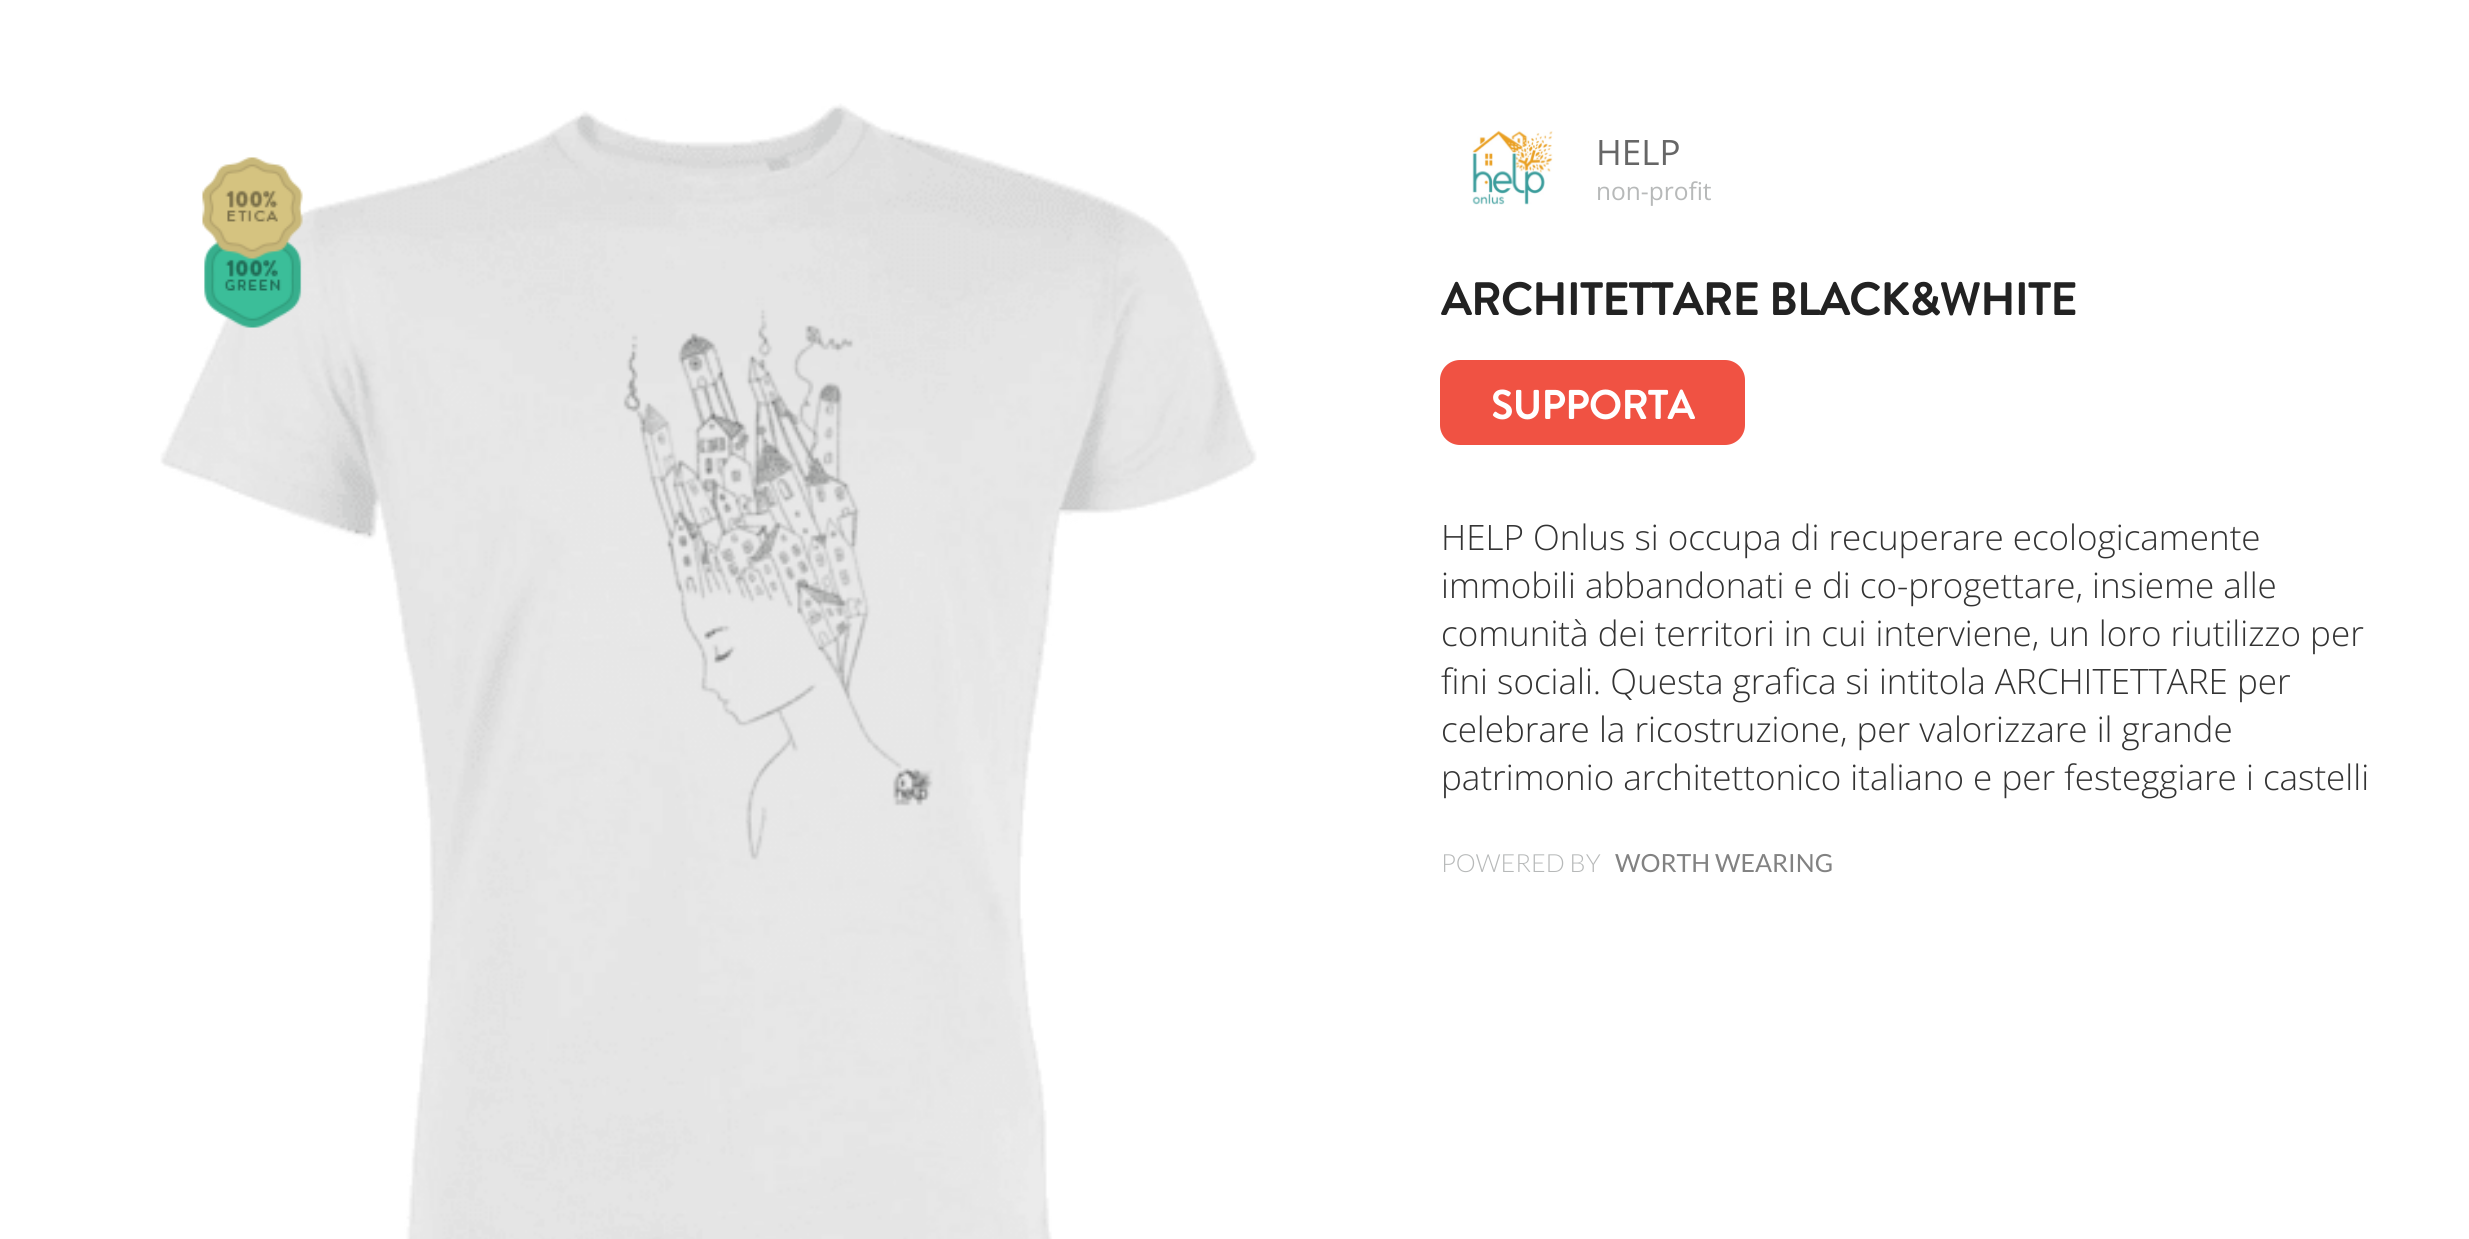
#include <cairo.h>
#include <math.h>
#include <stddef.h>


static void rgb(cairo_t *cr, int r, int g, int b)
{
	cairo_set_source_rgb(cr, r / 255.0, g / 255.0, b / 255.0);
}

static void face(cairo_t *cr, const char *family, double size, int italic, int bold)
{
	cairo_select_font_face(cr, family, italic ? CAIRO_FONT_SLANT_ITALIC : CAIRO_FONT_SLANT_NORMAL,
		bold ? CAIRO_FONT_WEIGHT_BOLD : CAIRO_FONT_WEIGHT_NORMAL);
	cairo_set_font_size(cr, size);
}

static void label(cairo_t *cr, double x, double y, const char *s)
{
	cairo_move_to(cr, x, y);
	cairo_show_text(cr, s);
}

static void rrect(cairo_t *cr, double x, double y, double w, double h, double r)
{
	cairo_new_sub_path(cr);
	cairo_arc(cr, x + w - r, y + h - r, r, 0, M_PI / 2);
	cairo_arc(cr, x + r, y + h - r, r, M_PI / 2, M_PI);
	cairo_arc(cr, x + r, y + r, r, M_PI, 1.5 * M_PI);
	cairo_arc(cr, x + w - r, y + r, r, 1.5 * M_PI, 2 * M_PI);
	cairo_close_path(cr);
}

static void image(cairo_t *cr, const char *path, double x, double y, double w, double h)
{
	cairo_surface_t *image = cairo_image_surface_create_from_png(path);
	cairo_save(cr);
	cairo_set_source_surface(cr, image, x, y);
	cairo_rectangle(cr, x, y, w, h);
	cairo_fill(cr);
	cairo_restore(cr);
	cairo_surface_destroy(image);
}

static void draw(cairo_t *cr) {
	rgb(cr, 255, 255, 255);
	cairo_paint(cr);
	image(cr, "image0.png", 160, 103, 1097, 1136);
	image(cr, "image1.png", 202, 157, 101, 171);
	image(cr, "image2.png", 1472, 130, 81, 75);
	face(cr, "Open Sans", 35, 0, 0);
	rgb(cr, 102, 102, 102);
	label(cr, 1596, 165, "HELP");
	face(cr, "Open Sans", 24.5, 0, 0);
	rgb(cr, 183, 185, 185);
	label(cr, 1596, 200, "non-profit");
	face(cr, "Brandon Grotesque", 45, 0, 1);
	rgb(cr, 34, 34, 34);
	label(cr, 1441, 315, "ARCHITETTARE BLACK&WHITE");
	rgb(cr, 240, 82, 67);
	rrect(cr, 1440, 360, 305, 85, 20);
	cairo_fill(cr);
	face(cr, "Brandon Grotesque", 40, 0, 1);
	rgb(cr, 255, 255, 255);
	label(cr, 1491, 419, "SUPPORTA");
	face(cr, "Open Sans Light", 35, 0, 0);
	rgb(cr, 51, 51, 51);
	label(cr, 1441, 550, "HELP Onlus si occupa di recuperare ecologicamente");
	label(cr, 1441, 598, "immobili abbandonati e di co-progettare, insieme alle");
	label(cr, 1441, 646, "comunità dei territori in cui interviene, un loro riutilizzo per");
	label(cr, 1441, 694, "fini sociali. Questa grafica si intitola ARCHITETTARE per");
	label(cr, 1441, 742, "celebrare la ricostruzione, per valorizzare il grande");
	label(cr, 1441, 790, "patrimonio architettonico italiano e per festeggiare i castelli");
	face(cr, "Lato Light", 25, 0, 0);
	rgb(cr, 183, 185, 185);
	label(cr, 1441, 872, "POWERED BY");
	face(cr, "Lato", 25, 0, 0);
	rgb(cr, 130, 130, 130);
	label(cr, 1615, 872, "WORTH WEARING");
}

int main(void) {
	cairo_surface_t *surface = cairo_image_surface_create(CAIRO_FORMAT_RGB24, 2469, 1239);
	cairo_t *cr = cairo_create(surface);
	cairo_font_options_t *options = cairo_font_options_create();
	cairo_font_options_set_hint_metrics(options, CAIRO_HINT_METRICS_OFF);
	cairo_font_options_set_hint_style(options, CAIRO_HINT_STYLE_NONE);
	cairo_set_font_options(cr, options);
	cairo_set_miter_limit(cr, 4);
	draw(cr);
	cairo_surface_write_to_png(surface, "render.png");
	cairo_font_options_destroy(options);
	cairo_destroy(cr);
	cairo_surface_destroy(surface);
	return 0;
}
